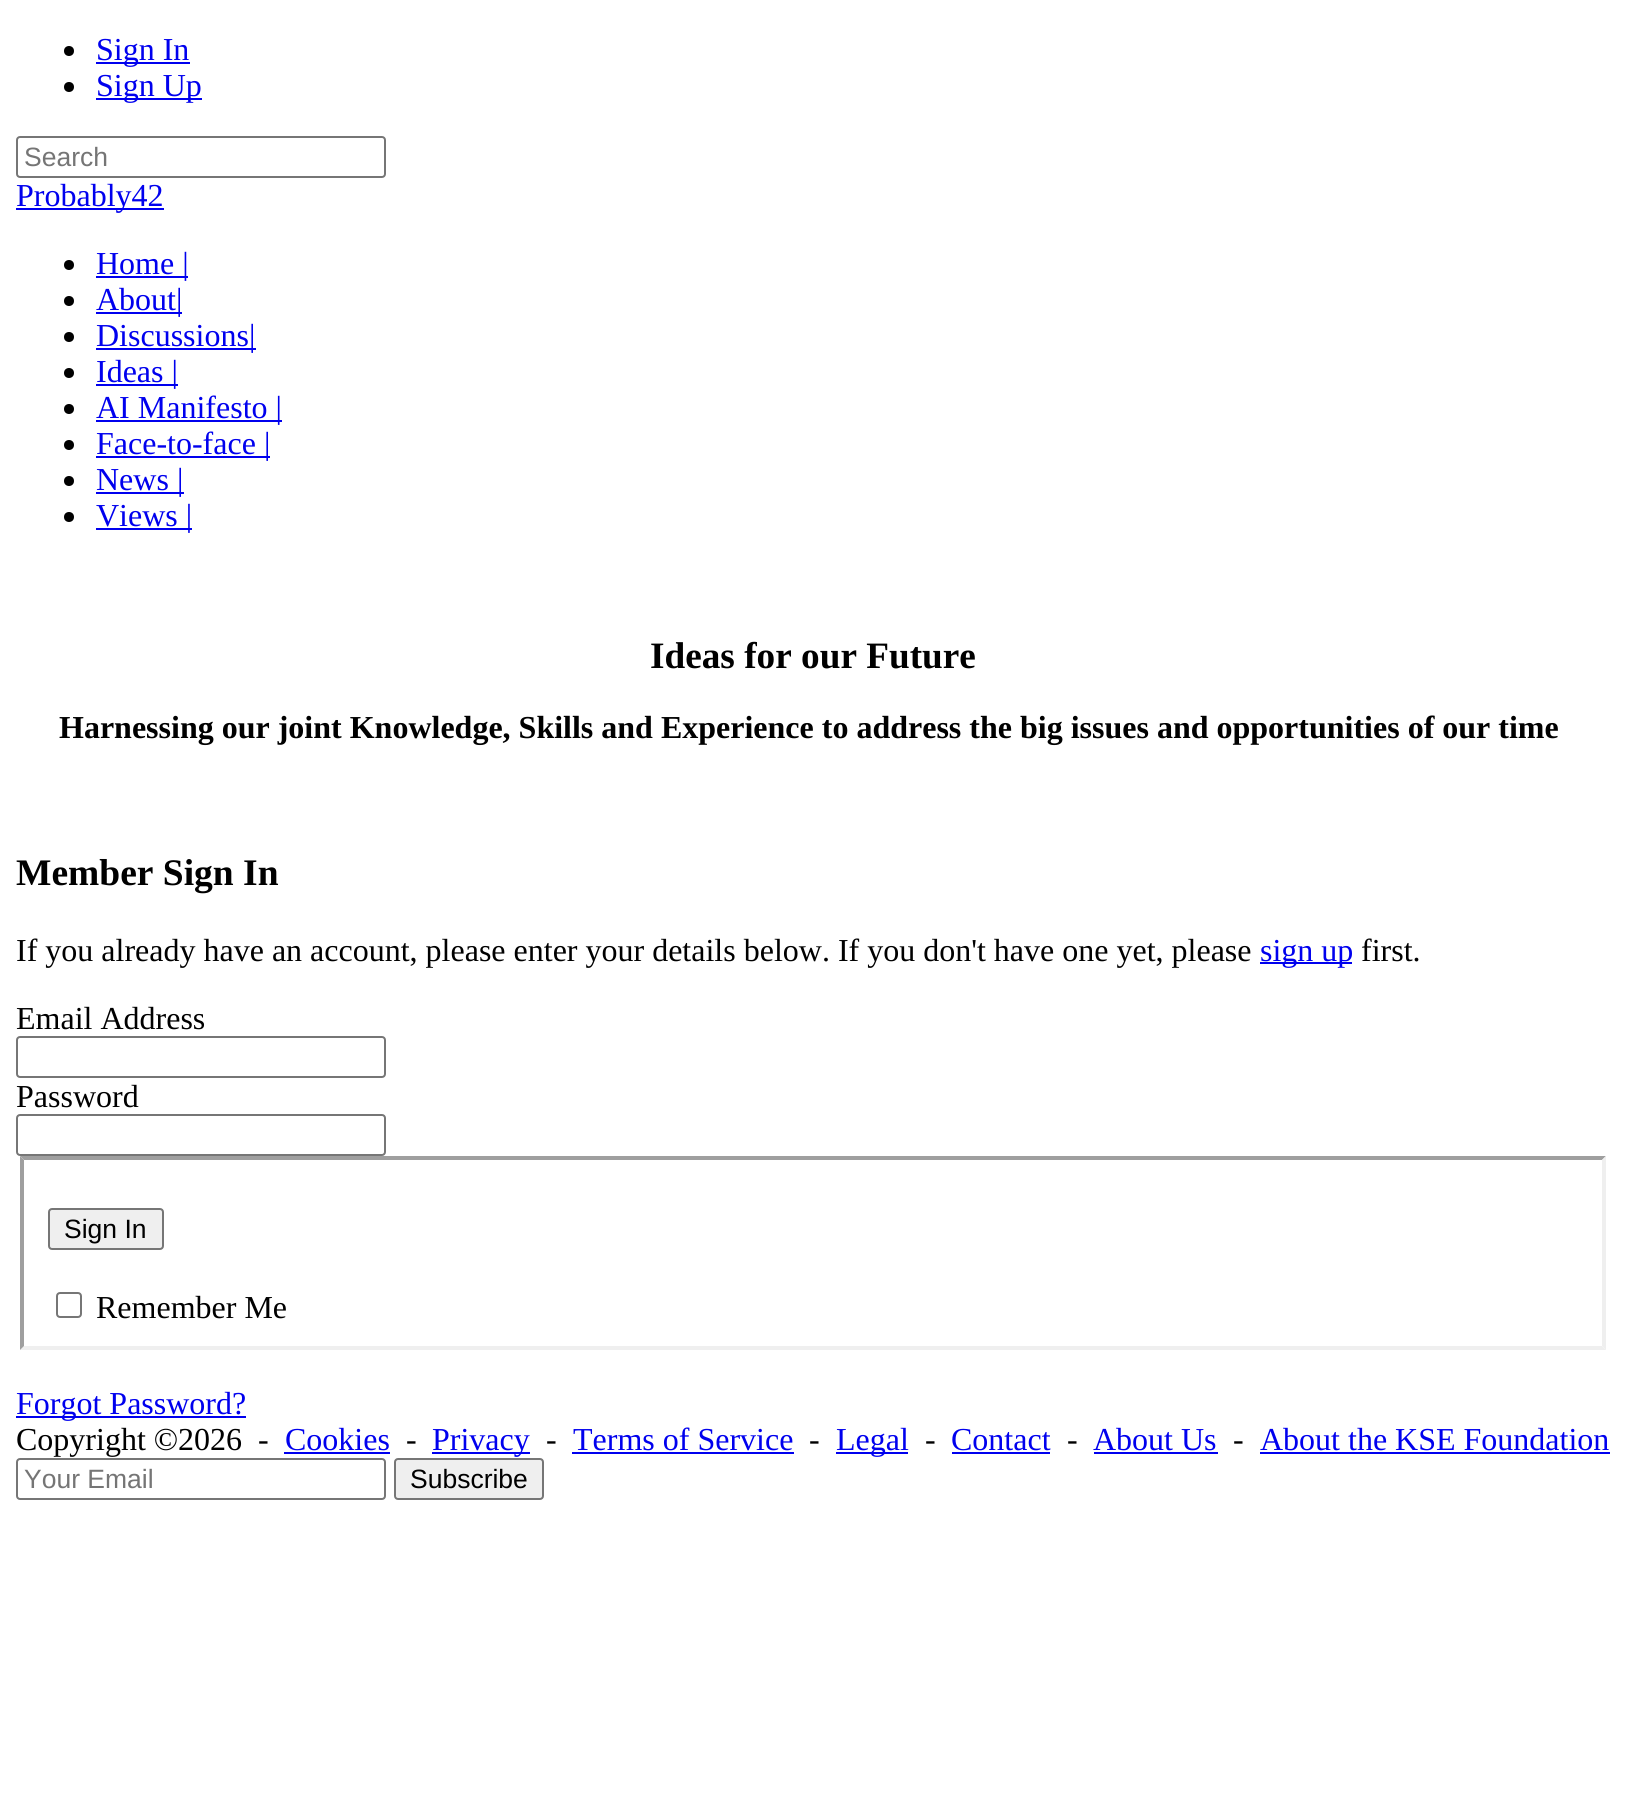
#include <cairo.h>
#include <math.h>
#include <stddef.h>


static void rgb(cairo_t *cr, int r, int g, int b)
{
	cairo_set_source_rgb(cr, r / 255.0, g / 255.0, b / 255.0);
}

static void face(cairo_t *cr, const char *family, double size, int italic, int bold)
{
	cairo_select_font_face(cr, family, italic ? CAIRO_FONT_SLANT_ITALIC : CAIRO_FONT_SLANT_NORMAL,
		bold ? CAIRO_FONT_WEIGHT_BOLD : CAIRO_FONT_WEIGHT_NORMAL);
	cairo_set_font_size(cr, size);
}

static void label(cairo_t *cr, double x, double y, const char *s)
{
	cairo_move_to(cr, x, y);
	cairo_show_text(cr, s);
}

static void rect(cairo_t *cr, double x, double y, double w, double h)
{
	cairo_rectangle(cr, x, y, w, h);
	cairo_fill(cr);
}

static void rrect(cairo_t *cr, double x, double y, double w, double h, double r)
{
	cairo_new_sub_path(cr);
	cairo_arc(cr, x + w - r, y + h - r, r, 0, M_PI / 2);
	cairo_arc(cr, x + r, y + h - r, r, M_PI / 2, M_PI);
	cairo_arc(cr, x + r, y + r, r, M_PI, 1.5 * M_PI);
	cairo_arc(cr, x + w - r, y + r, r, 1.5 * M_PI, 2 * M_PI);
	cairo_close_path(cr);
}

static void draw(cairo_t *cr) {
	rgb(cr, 255, 255, 255);
	cairo_paint(cr);
	rgb(cr, 0, 0, 0);
	cairo_arc(cr, 69, 51, 5, 0, 2 * M_PI);
	cairo_fill(cr);
	rgb(cr, 0, 0, 238);
	rect(cr, 96, 62, 94, 2);
	face(cr, "Liberation Serif", 32, 0, 0);
	label(cr, 96, 60, "Sign In");
	rgb(cr, 0, 0, 0);
	cairo_new_path(cr);
	cairo_arc(cr, 69, 87, 5, 0, 2 * M_PI);
	cairo_fill(cr);
	rgb(cr, 0, 0, 238);
	rect(cr, 96, 98, 106, 2);
	label(cr, 96, 96, "Sign Up");
	rrect(cr, 17, 137, 368, 40, 3);
	rgb(cr, 118, 118, 118);
	cairo_stroke(cr);
	face(cr, "Liberation Sans", 26.5, 0, 0);
	rgb(cr, 117, 117, 117);
	label(cr, 24, 166, "Search");
	rgb(cr, 0, 0, 238);
	rect(cr, 16, 208, 148, 2);
	face(cr, "Liberation Serif", 32, 0, 0);
	label(cr, 16, 206, "Probably42");
	rgb(cr, 0, 0, 0);
	cairo_new_path(cr);
	cairo_arc(cr, 69, 265, 5, 0, 2 * M_PI);
	cairo_fill(cr);
	rgb(cr, 0, 0, 238);
	rect(cr, 96, 276, 92, 2);
	label(cr, 96, 274, "Home |");
	rgb(cr, 0, 0, 0);
	cairo_new_path(cr);
	cairo_arc(cr, 69, 301, 5, 0, 2 * M_PI);
	cairo_fill(cr);
	rgb(cr, 0, 0, 238);
	rect(cr, 96, 312, 86, 2);
	label(cr, 96, 310, "About|");
	rgb(cr, 0, 0, 0);
	cairo_new_path(cr);
	cairo_arc(cr, 69, 337, 5, 0, 2 * M_PI);
	cairo_fill(cr);
	rgb(cr, 0, 0, 238);
	rect(cr, 96, 348, 160, 2);
	label(cr, 96, 346, "Discussions|");
	rgb(cr, 0, 0, 0);
	cairo_new_path(cr);
	cairo_arc(cr, 69, 373, 5, 0, 2 * M_PI);
	cairo_fill(cr);
	rgb(cr, 0, 0, 238);
	rect(cr, 96, 384, 82, 2);
	label(cr, 96, 382, "Ideas |");
	rgb(cr, 0, 0, 0);
	cairo_new_path(cr);
	cairo_arc(cr, 69, 409, 5, 0, 2 * M_PI);
	cairo_fill(cr);
	rgb(cr, 0, 0, 238);
	rect(cr, 96, 420, 186, 2);
	label(cr, 96, 418, "AI Manifesto |");
	rgb(cr, 0, 0, 0);
	cairo_new_path(cr);
	cairo_arc(cr, 69, 445, 5, 0, 2 * M_PI);
	cairo_fill(cr);
	rgb(cr, 0, 0, 238);
	rect(cr, 96, 456, 174, 2);
	label(cr, 96, 454, "Face-to-face |");
	rgb(cr, 0, 0, 0);
	cairo_new_path(cr);
	cairo_arc(cr, 69, 481, 5, 0, 2 * M_PI);
	cairo_fill(cr);
	rgb(cr, 0, 0, 238);
	rect(cr, 96, 492, 88, 2);
	label(cr, 96, 490, "News |");
	rgb(cr, 0, 0, 0);
	cairo_new_path(cr);
	cairo_arc(cr, 69, 517, 5, 0, 2 * M_PI);
	cairo_fill(cr);
	rgb(cr, 0, 0, 238);
	rect(cr, 96, 528, 96, 2);
	label(cr, 96, 526, "Views |");
	face(cr, "Liberation Serif", 37.25, 0, 1);
	rgb(cr, 0, 0, 0);
	label(cr, 650, 668, "Ideas for our Future");
	face(cr, "Liberation Serif", 32, 0, 1);
	label(cr, 59, 738, "Harnessing our joint Knowledge, Skills and Experience to address the big issues and opportunities of our time");
	face(cr, "Liberation Serif", 37.5, 0, 1);
	label(cr, 16, 885, "Member Sign In");
	face(cr, "Liberation Serif", 32, 0, 0);
	label(cr, 16, 961, "If you already have an account, please enter your details below. If you don't have one yet, please");
	rgb(cr, 0, 0, 238);
	rect(cr, 1260, 962, 92, 2);
	label(cr, 1260, 961, "sign up");
	rgb(cr, 0, 0, 0);
	label(cr, 1361, 961, "first.");
	label(cr, 16, 1029, "Email Address");
	rrect(cr, 17, 1037, 368, 40, 3);
	rgb(cr, 118, 118, 118);
	cairo_stroke(cr);
	rgb(cr, 0, 0, 0);
	label(cr, 16, 1107, "Password");
	rrect(cr, 17, 1115, 368, 40, 3);
	rgb(cr, 118, 118, 118);
	cairo_stroke(cr);
	rgb(cr, 159, 159, 159);
	cairo_new_path(cr);
	cairo_move_to(cr, 20, 1156);
	cairo_line_to(cr, 1606, 1156);
	cairo_line_to(cr, 1602, 1160);
	cairo_line_to(cr, 24, 1160);
	cairo_close_path(cr);
	cairo_fill(cr);
	rgb(cr, 239, 239, 239);
	cairo_new_path(cr);
	cairo_move_to(cr, 1606, 1156);
	cairo_line_to(cr, 1606, 1350);
	cairo_line_to(cr, 1602, 1346);
	cairo_line_to(cr, 1602, 1160);
	cairo_close_path(cr);
	cairo_fill(cr);
	cairo_new_path(cr);
	cairo_move_to(cr, 1606, 1350);
	cairo_line_to(cr, 20, 1350);
	cairo_line_to(cr, 24, 1346);
	cairo_line_to(cr, 1602, 1346);
	cairo_close_path(cr);
	cairo_fill(cr);
	rgb(cr, 159, 159, 159);
	cairo_new_path(cr);
	cairo_move_to(cr, 20, 1350);
	cairo_line_to(cr, 20, 1156);
	cairo_line_to(cr, 24, 1160);
	cairo_line_to(cr, 24, 1346);
	cairo_close_path(cr);
	cairo_fill(cr);
	rgb(cr, 239, 239, 239);
	rrect(cr, 49, 1209, 114, 40, 3);
	cairo_fill_preserve(cr);
	rgb(cr, 118, 118, 118);
	cairo_stroke(cr);
	face(cr, "Liberation Sans", 26.5, 0, 0);
	rgb(cr, 0, 0, 0);
	label(cr, 64, 1238, "Sign In");
	rrect(cr, 57, 1293, 24, 24, 3);
	rgb(cr, 118, 118, 118);
	cairo_stroke(cr);
	face(cr, "Liberation Serif", 32, 0, 0);
	rgb(cr, 0, 0, 0);
	label(cr, 96, 1318, "Remember Me");
	rgb(cr, 0, 0, 238);
	rect(cr, 16, 1416, 230, 2);
	label(cr, 16, 1414, "Forgot Password?");
	rgb(cr, 0, 0, 0);
	label(cr, 16, 1450, "Copyright ©2026");
	label(cr, 258, 1450, "-");
	rgb(cr, 0, 0, 238);
	label(cr, 285, 1450, "Cookies");
	rect(cr, 284, 1452, 106, 2);
	rgb(cr, 0, 0, 0);
	label(cr, 406, 1450, "-");
	rgb(cr, 0, 0, 238);
	rect(cr, 432, 1452, 98, 2);
	label(cr, 432, 1450, "Privacy");
	rgb(cr, 0, 0, 0);
	label(cr, 546, 1450, "-");
	rgb(cr, 0, 0, 238);
	label(cr, 573, 1450, "Terms of Service");
	rect(cr, 572, 1452, 222, 2);
	rgb(cr, 0, 0, 0);
	label(cr, 809, 1450, "-");
	rgb(cr, 0, 0, 238);
	rect(cr, 836, 1452, 72, 2);
	label(cr, 836, 1450, "Legal");
	rgb(cr, 0, 0, 0);
	label(cr, 925, 1450, "-");
	rgb(cr, 0, 0, 238);
	label(cr, 951, 1450, "Contact");
	rect(cr, 952, 1452, 98, 2);
	rgb(cr, 0, 0, 0);
	label(cr, 1067, 1450, "-");
	rgb(cr, 0, 0, 238);
	label(cr, 1093, 1450, "About Us");
	rect(cr, 1094, 1452, 124, 2);
	rgb(cr, 0, 0, 0);
	label(cr, 1233, 1450, "-");
	rgb(cr, 0, 0, 238);
	label(cr, 1260, 1450, "About the KSE Foundation");
	rect(cr, 1260, 1452, 350, 2);
	rrect(cr, 17, 1459, 368, 40, 3);
	rgb(cr, 118, 118, 118);
	cairo_stroke(cr);
	face(cr, "Liberation Sans", 26.5, 0, 0);
	rgb(cr, 117, 117, 117);
	label(cr, 24, 1488, "Your Email");
	rgb(cr, 239, 239, 239);
	rrect(cr, 395, 1459, 148, 40, 3);
	cairo_fill_preserve(cr);
	rgb(cr, 118, 118, 118);
	cairo_stroke(cr);
	rgb(cr, 0, 0, 0);
	label(cr, 410, 1488, "Subscribe");
}

int main(void) {
	cairo_surface_t *surface = cairo_image_surface_create(CAIRO_FORMAT_RGB24, 1626, 1793);
	cairo_t *cr = cairo_create(surface);
	cairo_font_options_t *options = cairo_font_options_create();
	cairo_font_options_set_hint_metrics(options, CAIRO_HINT_METRICS_OFF);
	cairo_font_options_set_hint_style(options, CAIRO_HINT_STYLE_NONE);
	cairo_set_font_options(cr, options);
	cairo_set_miter_limit(cr, 4);
	draw(cr);
	cairo_surface_write_to_png(surface, "render.png");
	cairo_font_options_destroy(options);
	cairo_destroy(cr);
	cairo_surface_destroy(surface);
	return 0;
}
